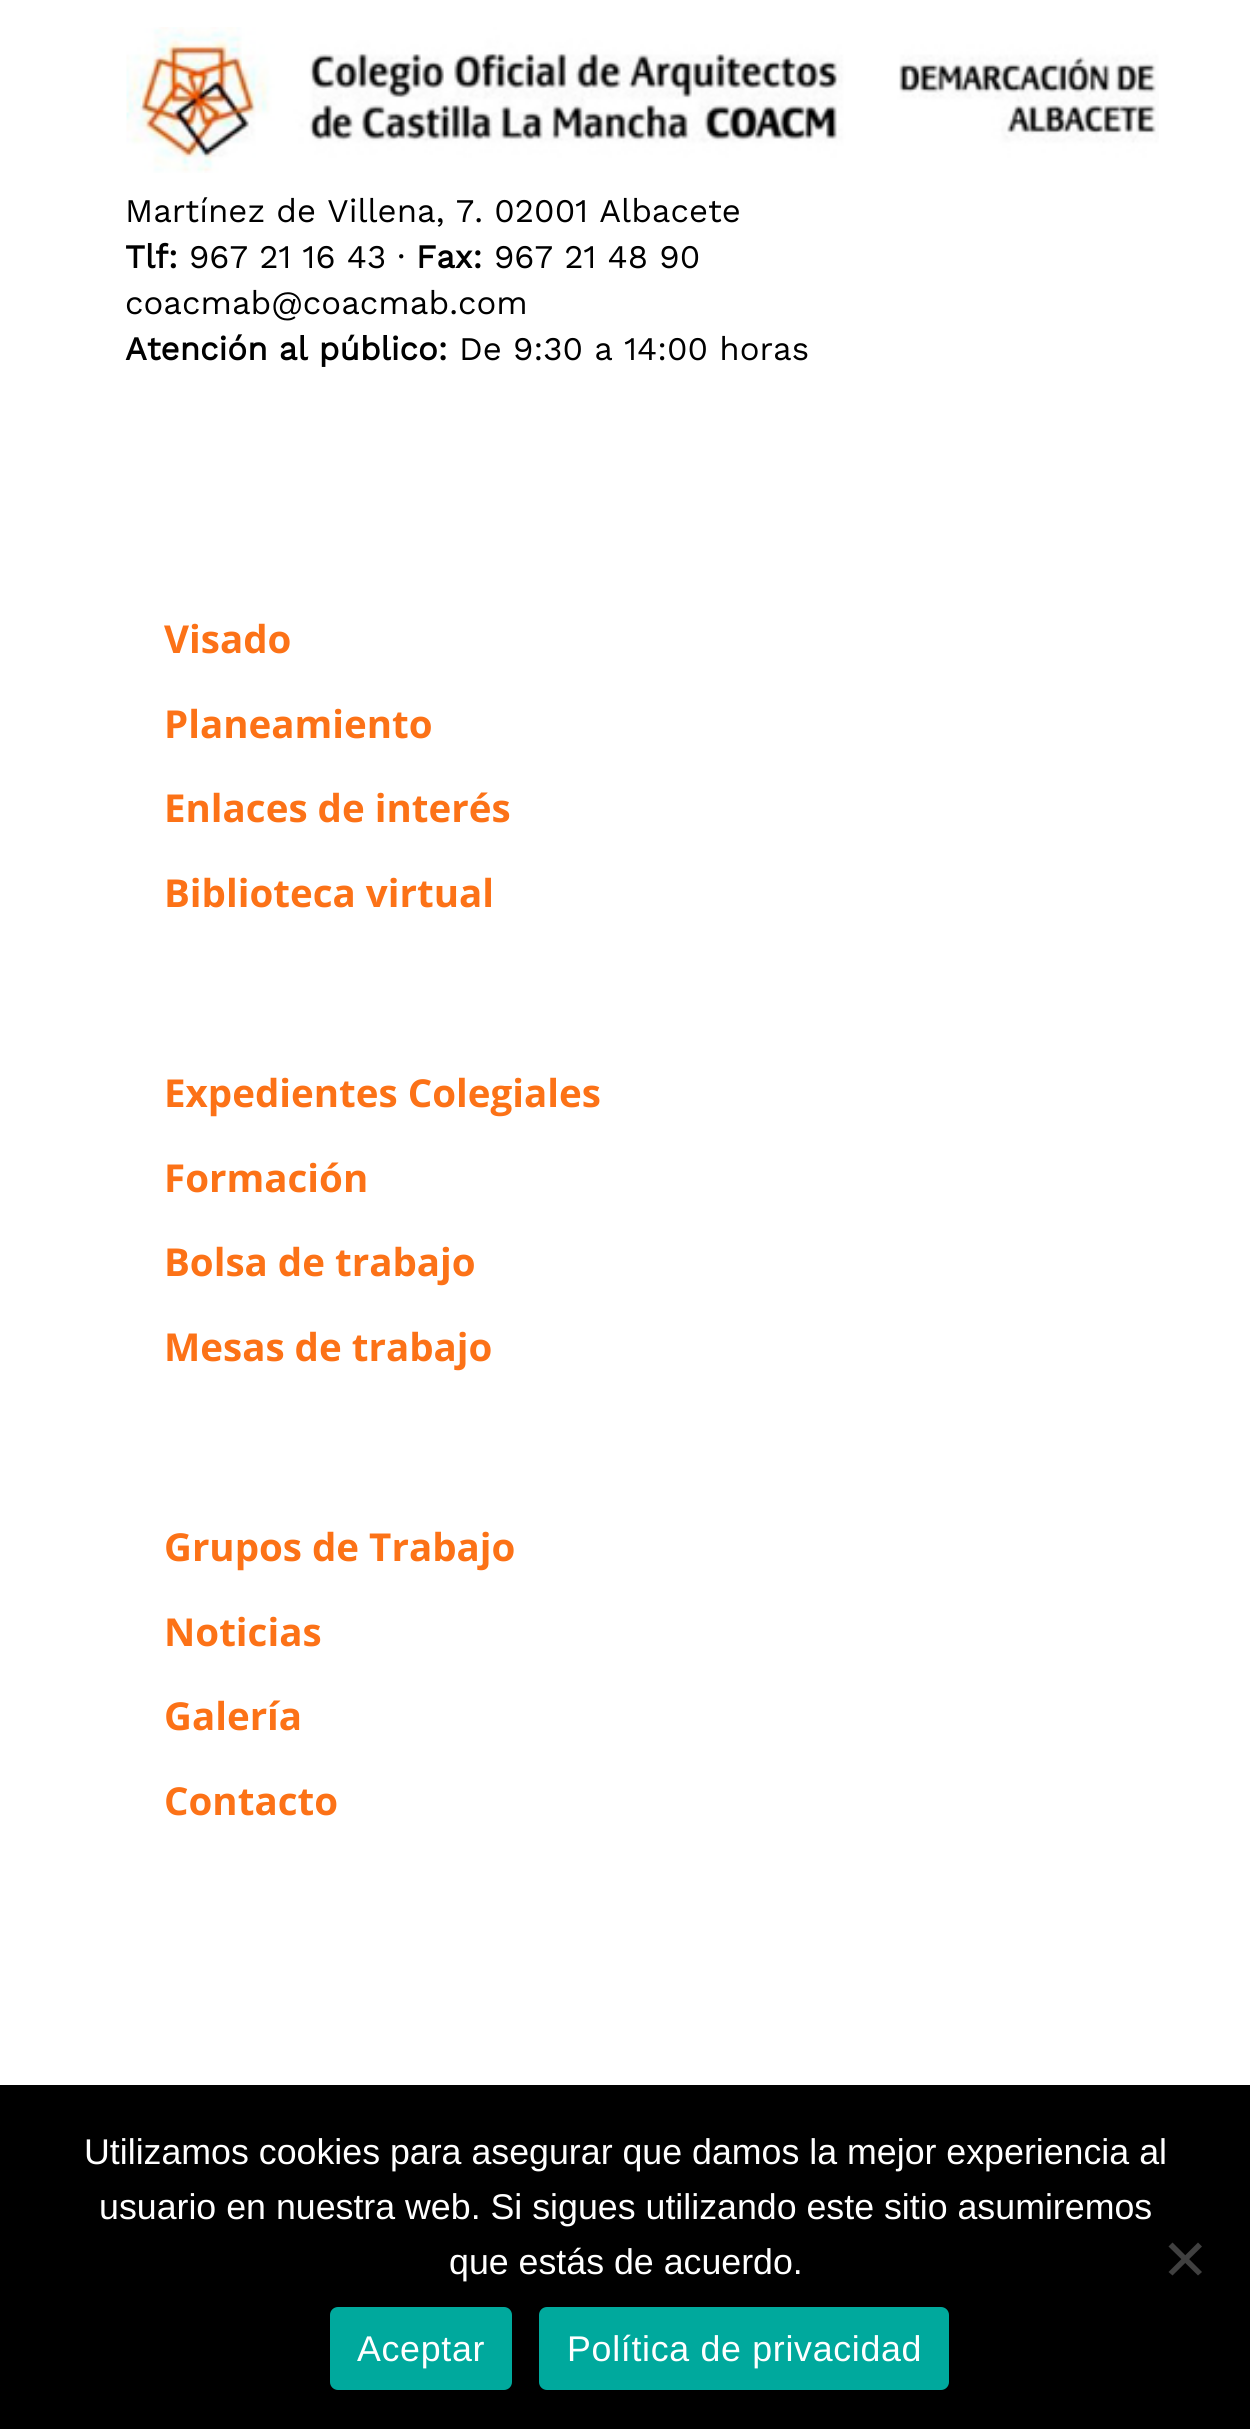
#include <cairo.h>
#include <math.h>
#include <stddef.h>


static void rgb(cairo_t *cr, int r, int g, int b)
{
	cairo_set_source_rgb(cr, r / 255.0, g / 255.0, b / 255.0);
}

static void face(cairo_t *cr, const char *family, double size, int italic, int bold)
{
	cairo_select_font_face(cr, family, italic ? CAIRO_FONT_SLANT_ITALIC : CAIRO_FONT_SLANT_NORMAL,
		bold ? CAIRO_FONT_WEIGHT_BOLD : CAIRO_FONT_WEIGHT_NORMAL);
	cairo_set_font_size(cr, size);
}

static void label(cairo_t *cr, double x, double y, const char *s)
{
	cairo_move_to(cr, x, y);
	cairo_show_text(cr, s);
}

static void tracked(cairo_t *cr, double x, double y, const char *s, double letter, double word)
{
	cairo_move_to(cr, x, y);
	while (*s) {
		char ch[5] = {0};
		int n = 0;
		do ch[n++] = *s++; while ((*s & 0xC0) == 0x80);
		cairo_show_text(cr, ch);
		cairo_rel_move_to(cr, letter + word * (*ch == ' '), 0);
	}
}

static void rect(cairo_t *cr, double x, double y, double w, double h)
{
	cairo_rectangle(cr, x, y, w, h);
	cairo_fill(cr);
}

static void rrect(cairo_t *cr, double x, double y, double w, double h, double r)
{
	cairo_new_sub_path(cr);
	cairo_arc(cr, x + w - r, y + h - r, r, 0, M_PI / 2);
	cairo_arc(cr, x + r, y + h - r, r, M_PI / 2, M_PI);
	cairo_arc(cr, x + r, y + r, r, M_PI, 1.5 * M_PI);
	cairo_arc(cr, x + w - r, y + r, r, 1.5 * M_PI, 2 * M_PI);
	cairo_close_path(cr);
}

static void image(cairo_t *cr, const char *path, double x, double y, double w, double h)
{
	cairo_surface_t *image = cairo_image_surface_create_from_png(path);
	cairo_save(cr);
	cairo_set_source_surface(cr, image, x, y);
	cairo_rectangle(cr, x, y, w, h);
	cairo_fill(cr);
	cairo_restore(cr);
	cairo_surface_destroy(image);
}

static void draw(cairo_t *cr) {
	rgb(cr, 255, 255, 255);
	cairo_paint(cr);
	image(cr, "image0.png", 126, 27, 1033, 146);
	face(cr, "Work Sans", 33, 0, 0);
	rgb(cr, 0, 0, 0);
	label(cr, 125, 222, "Martínez de Villena, 7. 02001 Albacete");
	face(cr, "Work Sans", 33, 0, 1);
	label(cr, 125, 268, "Tlf:");
	face(cr, "Work Sans", 33, 0, 0);
	label(cr, 189, 268, "967 21 16 43 ·");
	face(cr, "Work Sans", 33, 0, 1);
	label(cr, 416, 268, "Fax:");
	face(cr, "Work Sans", 33, 0, 0);
	label(cr, 494, 268, "967 21 48 90");
	label(cr, 125, 314, "coacmab@coacmab.com");
	face(cr, "Work Sans", 33, 0, 1);
	label(cr, 125, 360, "Atención al público:");
	face(cr, "Work Sans", 33, 0, 0);
	label(cr, 459, 360, "De 9:30 a 14:00 horas");
	face(cr, "Open Sans", 38.5, 0, 1);
	rgb(cr, 252, 114, 23);
	label(cr, 164, 653, "Visado");
	label(cr, 164, 738, "Planeamiento");
	label(cr, 164, 822, "Enlaces de interés");
	label(cr, 164, 907, "Biblioteca virtual");
	label(cr, 164, 1107, "Expedientes Colegiales");
	label(cr, 164, 1192, "Formación");
	label(cr, 164, 1276, "Bolsa de trabajo");
	label(cr, 164, 1361, "Mesas de trabajo");
	label(cr, 164, 1561, "Grupos de Trabajo");
	label(cr, 164, 1646, "Noticias");
	label(cr, 164, 1730, "Galería");
	label(cr, 164, 1815, "Contacto");
	rgb(cr, 0, 0, 0);
	rect(cr, 0, 2085, 1250, 344);
	face(cr, "Liberation Sans", 35.75, 0, 0);
	rgb(cr, 255, 255, 255);
	label(cr, 84, 2164, "Utilizamos cookies para asegurar que damos la mejor experiencia al");
	label(cr, 99, 2219, "usuario en nuestra web. Si sigues utilizando este sitio asumiremos");
	label(cr, 449, 2274, "que estás de acuerdo.");
	rgb(cr, 64, 64, 64);
	cairo_new_path(cr);
	cairo_move_to(cr, 1198, 2242.5);
	cairo_line_to(cr, 1202, 2246.5);
	cairo_line_to(cr, 1172.5, 2275.5);
	cairo_line_to(cr, 1168.5, 2272);
	cairo_close_path(cr);
	cairo_fill(cr);
	cairo_new_path(cr);
	cairo_move_to(cr, 1168.5, 2246.5);
	cairo_line_to(cr, 1172.5, 2242.5);
	cairo_line_to(cr, 1202, 2272);
	cairo_line_to(cr, 1198, 2275.5);
	cairo_close_path(cr);
	cairo_fill(cr);
	rgb(cr, 0, 169, 157);
	rrect(cr, 330, 2307, 182, 83, 8);
	cairo_fill(cr);
	rgb(cr, 255, 255, 255);
	tracked(cr, 357, 2361, "Aceptar", 0.7, 0);
	rgb(cr, 0, 169, 157);
	rrect(cr, 539, 2307, 410, 83, 8);
	cairo_fill(cr);
	rgb(cr, 255, 255, 255);
	tracked(cr, 567, 2361, "Política de privacidad", 0.7, 0);
}

int main(void) {
	cairo_surface_t *surface = cairo_image_surface_create(CAIRO_FORMAT_RGB24, 1250, 2429);
	cairo_t *cr = cairo_create(surface);
	cairo_font_options_t *options = cairo_font_options_create();
	cairo_font_options_set_hint_metrics(options, CAIRO_HINT_METRICS_OFF);
	cairo_font_options_set_hint_style(options, CAIRO_HINT_STYLE_NONE);
	cairo_set_font_options(cr, options);
	cairo_set_miter_limit(cr, 4);
	draw(cr);
	cairo_surface_write_to_png(surface, "render.png");
	cairo_font_options_destroy(options);
	cairo_destroy(cr);
	cairo_surface_destroy(surface);
	return 0;
}
